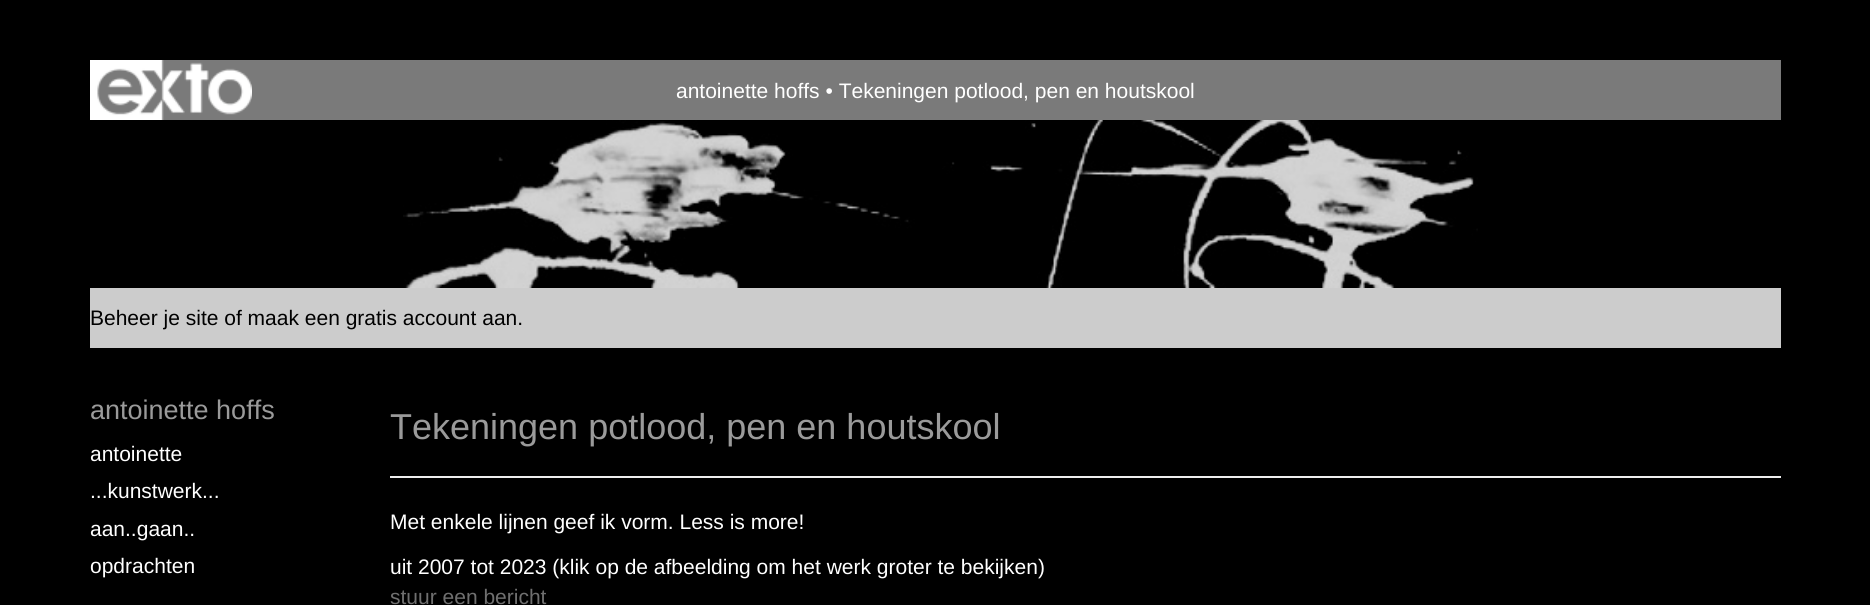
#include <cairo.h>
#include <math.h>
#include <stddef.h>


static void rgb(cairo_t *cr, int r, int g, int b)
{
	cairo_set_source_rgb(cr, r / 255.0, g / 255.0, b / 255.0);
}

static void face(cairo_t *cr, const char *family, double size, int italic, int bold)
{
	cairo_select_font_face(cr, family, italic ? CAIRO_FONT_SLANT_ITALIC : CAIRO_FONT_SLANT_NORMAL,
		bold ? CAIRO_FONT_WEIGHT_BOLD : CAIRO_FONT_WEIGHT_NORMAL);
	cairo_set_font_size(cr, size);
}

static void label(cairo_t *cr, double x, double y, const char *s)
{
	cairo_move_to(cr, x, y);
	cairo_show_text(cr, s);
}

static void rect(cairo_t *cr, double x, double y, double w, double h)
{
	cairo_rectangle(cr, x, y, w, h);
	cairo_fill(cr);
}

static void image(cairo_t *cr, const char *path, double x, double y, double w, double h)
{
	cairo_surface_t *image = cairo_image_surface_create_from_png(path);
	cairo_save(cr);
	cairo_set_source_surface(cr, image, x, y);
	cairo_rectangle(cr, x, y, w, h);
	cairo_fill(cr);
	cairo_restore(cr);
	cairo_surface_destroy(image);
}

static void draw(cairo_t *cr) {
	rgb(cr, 0, 0, 0);
	cairo_paint(cr);
	rgb(cr, 122, 122, 122);
	rect(cr, 97, 60, 1684, 60);
	image(cr, "image0.png", 90, 60, 162, 60);
	face(cr, "Liberation Sans", 21, 0, 0);
	rgb(cr, 255, 255, 255);
	label(cr, 676, 98, "antoinette hoffs • Tekeningen potlood, pen en houtskool");
	image(cr, "image1.png", 403, 120, 1075, 168);
	rgb(cr, 204, 204, 204);
	rect(cr, 90, 288, 1691, 60);
	rgb(cr, 0, 0, 0);
	label(cr, 90, 325, "Beheer je site of maak een gratis account aan.");
	face(cr, "Liberation Sans", 27, 0, 0);
	rgb(cr, 154, 154, 154);
	label(cr, 90, 419, "antoinette hoffs");
	face(cr, "Liberation Sans", 21, 0, 0);
	rgb(cr, 255, 255, 255);
	label(cr, 90, 461, "antoinette");
	label(cr, 90, 498, "...kunstwerk...");
	label(cr, 90, 536, "aan..gaan..");
	label(cr, 90, 573, "opdrachten");
	rgb(cr, 238, 238, 238);
	rect(cr, 390, 476, 1391, 2);
	face(cr, "Liberation Sans", 36, 0, 0);
	rgb(cr, 154, 154, 154);
	label(cr, 390, 439, "Tekeningen potlood, pen en houtskool");
	face(cr, "Liberation Sans", 21, 0, 0);
	rgb(cr, 255, 255, 255);
	label(cr, 390, 529, "Met enkele lijnen geef ik vorm. Less is more!");
	label(cr, 390, 574, "uit 2007 tot 2023 (klik op de afbeelding om het werk groter te bekijken)");
	rgb(cr, 111, 111, 111);
	label(cr, 390, 604, "stuur een bericht");
}

int main(void) {
	cairo_surface_t *surface = cairo_image_surface_create(CAIRO_FORMAT_RGB24, 1870, 605);
	cairo_t *cr = cairo_create(surface);
	cairo_font_options_t *options = cairo_font_options_create();
	cairo_font_options_set_hint_metrics(options, CAIRO_HINT_METRICS_OFF);
	cairo_font_options_set_hint_style(options, CAIRO_HINT_STYLE_NONE);
	cairo_set_font_options(cr, options);
	cairo_set_miter_limit(cr, 4);
	draw(cr);
	cairo_surface_write_to_png(surface, "render.png");
	cairo_font_options_destroy(options);
	cairo_destroy(cr);
	cairo_surface_destroy(surface);
	return 0;
}
